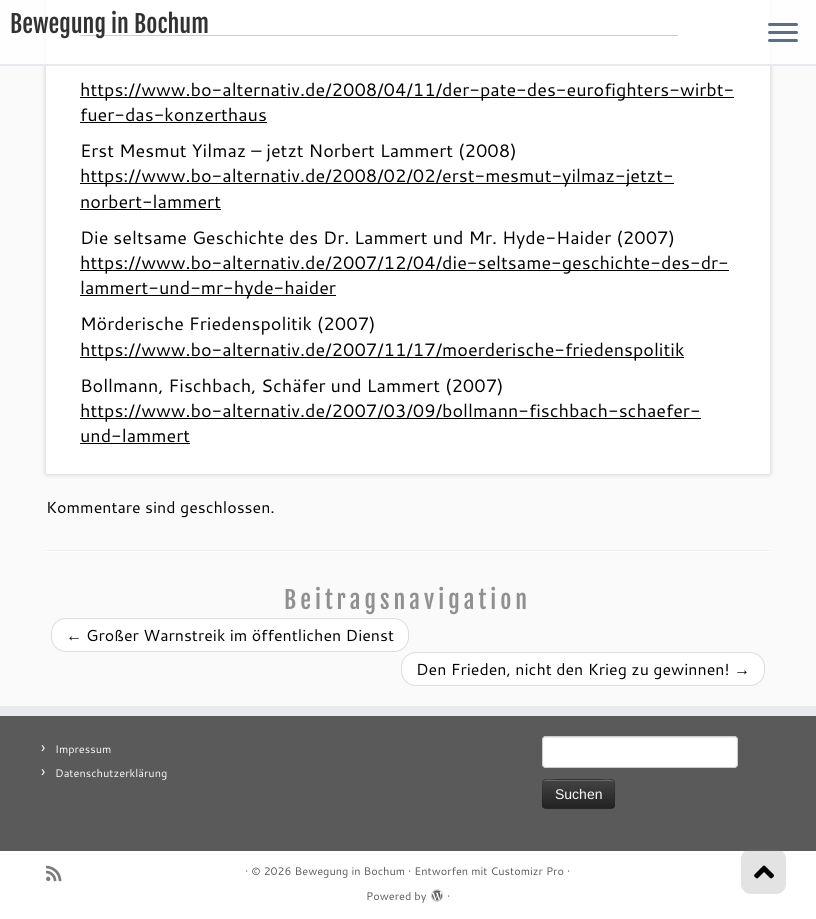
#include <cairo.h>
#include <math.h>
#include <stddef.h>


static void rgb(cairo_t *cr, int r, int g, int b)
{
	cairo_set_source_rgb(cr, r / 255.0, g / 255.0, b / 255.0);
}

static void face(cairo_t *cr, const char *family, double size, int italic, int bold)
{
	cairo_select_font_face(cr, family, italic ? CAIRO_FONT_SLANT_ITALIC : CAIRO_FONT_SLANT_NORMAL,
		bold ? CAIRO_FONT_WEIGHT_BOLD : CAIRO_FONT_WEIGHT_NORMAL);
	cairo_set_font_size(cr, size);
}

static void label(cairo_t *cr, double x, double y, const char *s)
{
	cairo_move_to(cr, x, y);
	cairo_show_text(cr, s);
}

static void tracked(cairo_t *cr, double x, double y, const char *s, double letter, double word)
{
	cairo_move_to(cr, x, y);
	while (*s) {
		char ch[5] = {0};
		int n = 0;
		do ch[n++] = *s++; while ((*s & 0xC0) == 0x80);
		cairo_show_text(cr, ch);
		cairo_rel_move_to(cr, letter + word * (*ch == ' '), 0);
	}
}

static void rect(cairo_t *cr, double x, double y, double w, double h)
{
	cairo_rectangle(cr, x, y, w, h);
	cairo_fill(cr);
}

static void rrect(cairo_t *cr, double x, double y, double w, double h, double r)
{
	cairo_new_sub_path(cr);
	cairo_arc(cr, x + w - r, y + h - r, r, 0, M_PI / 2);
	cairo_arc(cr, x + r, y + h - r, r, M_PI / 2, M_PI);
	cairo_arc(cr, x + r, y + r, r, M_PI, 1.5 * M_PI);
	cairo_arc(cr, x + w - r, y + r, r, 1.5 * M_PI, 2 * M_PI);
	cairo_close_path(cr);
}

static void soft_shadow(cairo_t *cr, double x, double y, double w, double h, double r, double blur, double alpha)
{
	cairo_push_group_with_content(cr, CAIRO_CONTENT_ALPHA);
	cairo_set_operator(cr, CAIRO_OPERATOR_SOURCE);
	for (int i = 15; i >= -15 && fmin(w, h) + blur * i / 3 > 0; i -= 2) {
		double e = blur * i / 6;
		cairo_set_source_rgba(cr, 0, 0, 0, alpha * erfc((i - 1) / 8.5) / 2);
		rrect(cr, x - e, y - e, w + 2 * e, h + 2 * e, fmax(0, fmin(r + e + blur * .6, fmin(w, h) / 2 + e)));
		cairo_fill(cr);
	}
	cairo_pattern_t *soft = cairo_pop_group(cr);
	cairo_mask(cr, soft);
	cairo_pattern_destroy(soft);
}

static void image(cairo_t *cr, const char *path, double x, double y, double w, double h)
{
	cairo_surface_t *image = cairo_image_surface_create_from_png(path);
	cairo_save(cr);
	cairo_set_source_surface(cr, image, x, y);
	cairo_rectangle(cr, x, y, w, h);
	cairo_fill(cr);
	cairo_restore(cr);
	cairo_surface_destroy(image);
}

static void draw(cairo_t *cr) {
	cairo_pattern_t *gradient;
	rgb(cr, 250, 250, 250);
	cairo_paint(cr);
	rgb(cr, 0, 0, 0);
	soft_shadow(cr, 46, -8, 724, 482, 0, 2.5, 0.2);
	rgb(cr, 255, 255, 255);
	rect(cr, 46, 0, 724, 474);
	rgb(cr, 0, 0, 0);
	rect(cr, 80, 35, 598, 1);
	cairo_set_source_rgba(cr, 1, 1, 1, 0.8);
	rect(cr, 0, 0, 816, 64);
	rgb(cr, 233, 234, 238);
	rect(cr, 0, 64, 816, 2);
	face(cr, "Fjalla One", 24, 0, 0);
	rgb(cr, 50, 50, 50);
	label(cr, 10, 33, "Bewegung in Bochum");
	rgb(cr, 95, 111, 129);
	rrect(cr, 768, 23, 30, 3, 1.5);
	cairo_fill(cr);
	rrect(cr, 768, 31, 30, 3, 1.5);
	cairo_fill(cr);
	rrect(cr, 768, 39, 30, 3, 1.5);
	cairo_fill(cr);
	rgb(cr, 0, 0, 0);
	rect(cr, 80, 97, 654, 1);
	face(cr, "Cantarell", 18, 0, 0);
	label(cr, 80, 96, "https://www.bo-alternativ.de/2008/04/11/der-pate-des-eurofighters-wirbt-");
	label(cr, 80, 121, "fuer-das-konzerthaus");
	rect(cr, 80, 122, 187, 1);
	label(cr, 80, 157, "Erst Mesmut Yilmaz – jetzt Norbert Lammert (2008)");
	rect(cr, 80, 183, 594, 1);
	label(cr, 80, 182, "https://www.bo-alternativ.de/2008/02/02/erst-mesmut-yilmaz-jetzt-");
	label(cr, 80, 208, "norbert-lammert");
	rect(cr, 80, 209, 141, 1);
	label(cr, 80, 244, "Die seltsame Geschichte des Dr. Lammert und Mr. Hyde-Haider (2007)");
	rect(cr, 80, 270, 649, 1);
	label(cr, 80, 269, "https://www.bo-alternativ.de/2007/12/04/die-seltsame-geschichte-des-dr-");
	rect(cr, 80, 295, 256, 1);
	label(cr, 80, 294, "lammert-und-mr-hyde-haider");
	label(cr, 80, 330, "Mörderische Friedenspolitik (2007)");
	rect(cr, 80, 357, 604, 1);
	label(cr, 80, 356, "https://www.bo-alternativ.de/2007/11/17/moerderische-friedenspolitik");
	label(cr, 80, 392, "Bollmann, Fischbach, Schäfer und Lammert (2007)");
	rect(cr, 80, 418, 621, 1);
	label(cr, 80, 417, "https://www.bo-alternativ.de/2007/03/09/bollmann-fischbach-schaefer-");
	label(cr, 80, 442, "und-lammert");
	rect(cr, 80, 443, 110, 1);
	face(cr, "Cantarell", 16, 0, 0);
	label(cr, 46, 513, "Kommentare sind geschlossen.");
	rgb(cr, 238, 238, 238);
	rect(cr, 46, 550, 724, 1);
	rgb(cr, 255, 255, 255);
	rect(cr, 46, 551, 724, 1);
	face(cr, "Fjalla One", 24, 0, 0);
	rgb(cr, 144, 144, 144);
	tracked(cr, 284, 609, "Beitragsnavigation", 4, 0);
	rgb(cr, 255, 255, 255);
	rrect(cr, 51.5, 618.5, 357, 33, 14.5);
	cairo_fill_preserve(cr);
	rgb(cr, 221, 221, 221);
	cairo_set_line_width(cr, 1);
	cairo_stroke(cr);
	face(cr, "Liberation Serif", 16, 0, 0);
	rgb(cr, 0, 0, 0);
	label(cr, 66, 641, "←");
	face(cr, "Cantarell", 16, 0, 0);
	label(cr, 86, 641, "Großer Warnstreik im öffentlichen Dienst");
	rgb(cr, 255, 255, 255);
	rrect(cr, 401.5, 652.5, 363, 33, 14.5);
	cairo_fill_preserve(cr);
	rgb(cr, 221, 221, 221);
	cairo_stroke(cr);
	rgb(cr, 0, 0, 0);
	label(cr, 416, 675, "Den Frieden, nicht den Krieg zu gewinnen!");
	face(cr, "Liberation Serif", 16, 0, 0);
	label(cr, 734, 675, "→");
	rgb(cr, 90, 90, 90);
	rect(cr, 0, 716, 816, 135);
	rgb(cr, 233, 234, 238);
	rect(cr, 0, 706, 816, 10);
	face(cr, "Cantarell", 16, 0, 0);
	rgb(cr, 250, 250, 250);
	label(cr, 41, 753, "›");
	face(cr, "Cantarell", 11, 0, 0);
	label(cr, 55, 753, "Impressum");
	face(cr, "Cantarell", 16, 0, 0);
	label(cr, 41, 777, "›");
	face(cr, "Cantarell", 11, 0, 0);
	label(cr, 55, 777, "Datenschutzerklärung");
	rgb(cr, 255, 255, 255);
	rrect(cr, 542, 736, 196, 32, 4);
	cairo_fill(cr);
	rgb(cr, 236, 236, 236);
	cairo_new_path(cr);
	cairo_move_to(cr, 546, 738);
	cairo_line_to(cr, 734, 738);
	cairo_curve_to(cr, 736, 738, 737, 739, 737, 741);
	cairo_curve_to(cr, 737, 739, 736, 737, 734, 737);
	cairo_line_to(cr, 546, 737);
	cairo_curve_to(cr, 544, 737, 543, 739, 543, 741);
	cairo_curve_to(cr, 543, 739, 544, 738, 546, 738);
	cairo_close_path(cr);
	cairo_fill(cr);
	rrect(cr, 542.5, 736.5, 195, 31, 3.5);
	rgb(cr, 204, 204, 204);
	cairo_stroke(cr);
	rgb(cr, 54, 54, 54);
	rrect(cr, 542, 779, 73, 30, 4);
	cairo_fill(cr);
	cairo_save(cr);
	rrect(cr, 542, 779, 73, 30, 4);
	cairo_clip(cr);
	gradient = cairo_pattern_create_linear(579, 780, 579, 808);
	cairo_pattern_add_color_stop_rgba(gradient, 0, 0.267, 0.267, 0.267, 1);
	cairo_pattern_add_color_stop_rgba(gradient, 1, 0.133, 0.133, 0.133, 1);
	cairo_set_source(cr, gradient);
	cairo_pattern_destroy(gradient);
	rect(cr, 542, 780, 73, 28);
	cairo_restore(cr);
	cairo_set_source_rgba(cr, 1, 1, 1, 0.2);
	cairo_new_path(cr);
	cairo_move_to(cr, 546, 781);
	cairo_line_to(cr, 611, 781);
	cairo_curve_to(cr, 613, 781, 614, 782, 614, 784);
	cairo_curve_to(cr, 614, 777, 604, 780, 600, 780);
	cairo_line_to(cr, 557, 780);
	cairo_curve_to(cr, 553, 780, 543, 777, 543, 784);
	cairo_curve_to(cr, 543, 782, 544, 781, 546, 781);
	cairo_close_path(cr);
	cairo_fill(cr);
	cairo_new_path(cr);
	cairo_move_to(cr, 613.5, 807.5);
	cairo_line_to(cr, 611.5, 808.5);
	cairo_line_to(cr, 545.5, 808.5);
	cairo_line_to(cr, 543.5, 807.5);
	cairo_set_source_rgba(cr, 0, 0, 0, 0.25);
	cairo_stroke(cr);
	cairo_new_path(cr);
	cairo_move_to(cr, 543.5, 807.5);
	cairo_curve_to(cr, 541.5, 805.5, 542.5, 797, 542.5, 794);
	cairo_curve_to(cr, 542.5, 777.5, 540, 779.5, 557, 779.5);
	cairo_line_to(cr, 600, 779.5);
	cairo_curve_to(cr, 617, 779.5, 614.5, 777.5, 614.5, 794);
	cairo_curve_to(cr, 614.5, 797, 615.5, 805.5, 613.5, 807.5);
	cairo_set_source_rgba(cr, 0, 0, 0, 0.1);
	cairo_stroke(cr);
	face(cr, "Liberation Sans", 14, 0, 0);
	rgb(cr, 250, 250, 250);
	label(cr, 555, 799, "Suchen");
	rgb(cr, 255, 255, 255);
	rect(cr, 0, 851, 816, 68);
	image(cr, "image0.png", 46, 865, 16, 17);
	face(cr, "Cantarell", 11, 0, 0);
	rgb(cr, 90, 90, 90);
	label(cr, 245, 875, "· © 2026 Bewegung in Bochum · Entworfen mit Customizr Pro ·");
	label(cr, 366, 900, "Powered by");
	image(cr, "image1.png", 431, 889, 12, 13);
	label(cr, 447, 900, "·");
	cairo_set_source_rgba(cr, 0.467, 0.467, 0.467, 0.2);
	rrect(cr, 741, 849, 45, 45, 10);
	cairo_fill(cr);
	image(cr, "image2.png", 754, 865, 20, 14);
}

int main(void) {
	cairo_surface_t *surface = cairo_image_surface_create(CAIRO_FORMAT_RGB24, 816, 919);
	cairo_t *cr = cairo_create(surface);
	cairo_font_options_t *options = cairo_font_options_create();
	cairo_font_options_set_hint_metrics(options, CAIRO_HINT_METRICS_OFF);
	cairo_font_options_set_hint_style(options, CAIRO_HINT_STYLE_NONE);
	cairo_set_font_options(cr, options);
	cairo_set_miter_limit(cr, 4);
	draw(cr);
	cairo_surface_write_to_png(surface, "render.png");
	cairo_font_options_destroy(options);
	cairo_destroy(cr);
	cairo_surface_destroy(surface);
	return 0;
}
